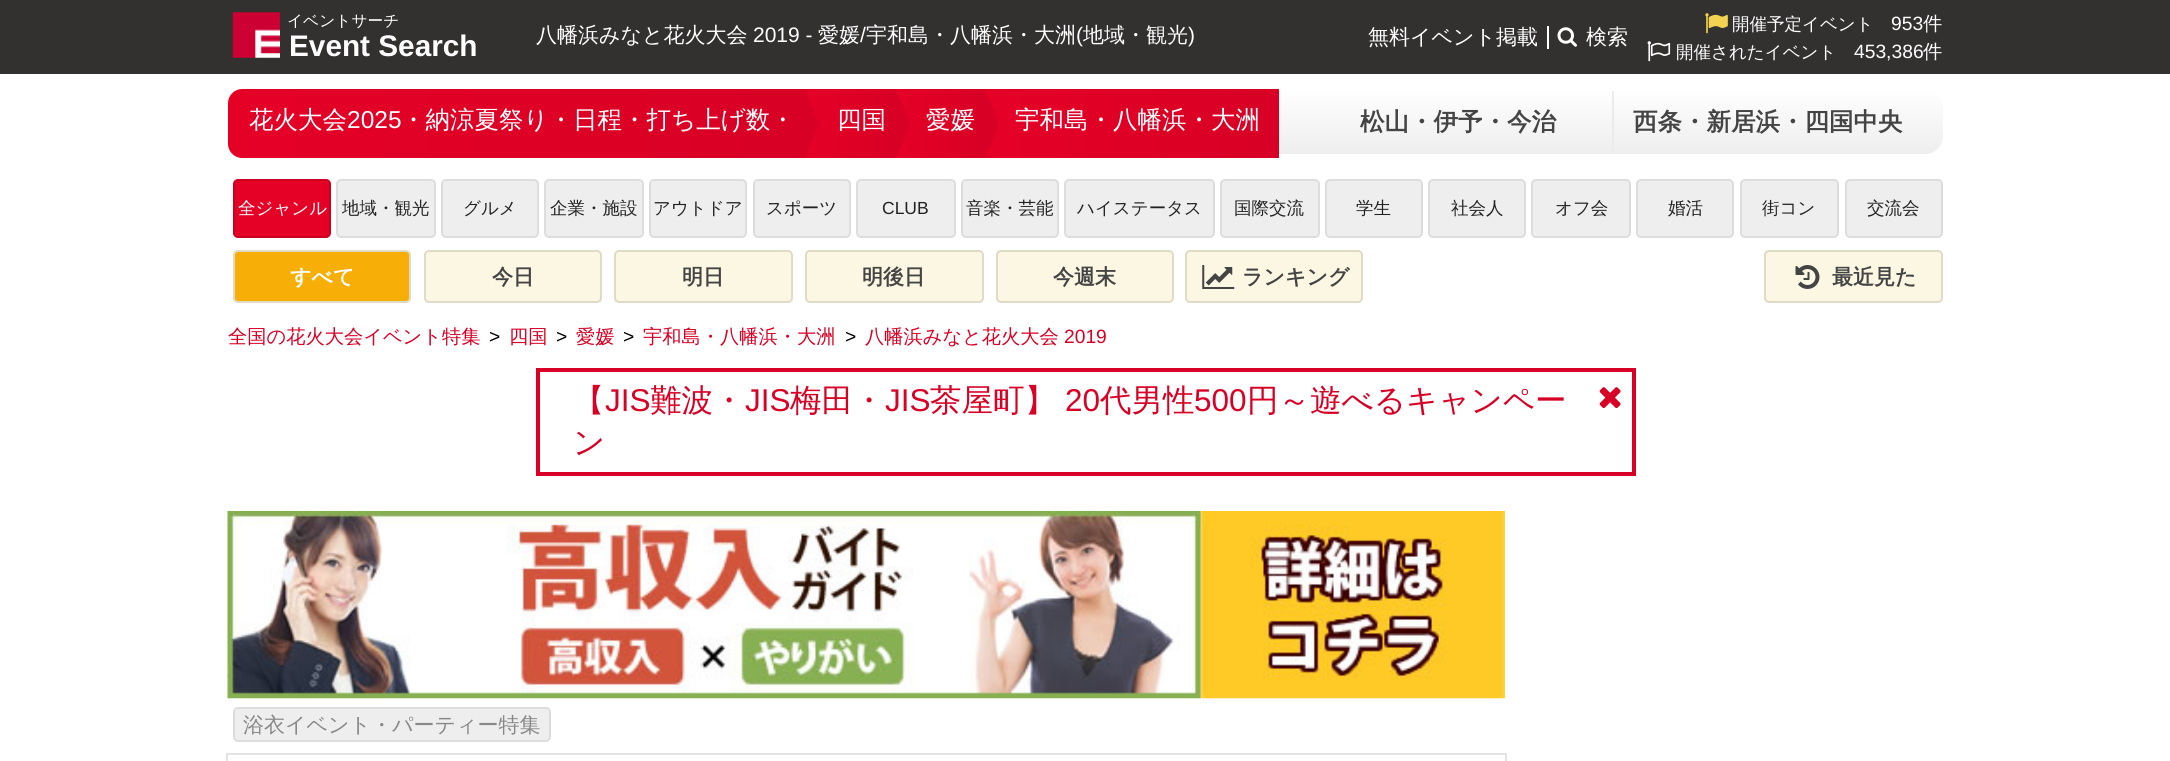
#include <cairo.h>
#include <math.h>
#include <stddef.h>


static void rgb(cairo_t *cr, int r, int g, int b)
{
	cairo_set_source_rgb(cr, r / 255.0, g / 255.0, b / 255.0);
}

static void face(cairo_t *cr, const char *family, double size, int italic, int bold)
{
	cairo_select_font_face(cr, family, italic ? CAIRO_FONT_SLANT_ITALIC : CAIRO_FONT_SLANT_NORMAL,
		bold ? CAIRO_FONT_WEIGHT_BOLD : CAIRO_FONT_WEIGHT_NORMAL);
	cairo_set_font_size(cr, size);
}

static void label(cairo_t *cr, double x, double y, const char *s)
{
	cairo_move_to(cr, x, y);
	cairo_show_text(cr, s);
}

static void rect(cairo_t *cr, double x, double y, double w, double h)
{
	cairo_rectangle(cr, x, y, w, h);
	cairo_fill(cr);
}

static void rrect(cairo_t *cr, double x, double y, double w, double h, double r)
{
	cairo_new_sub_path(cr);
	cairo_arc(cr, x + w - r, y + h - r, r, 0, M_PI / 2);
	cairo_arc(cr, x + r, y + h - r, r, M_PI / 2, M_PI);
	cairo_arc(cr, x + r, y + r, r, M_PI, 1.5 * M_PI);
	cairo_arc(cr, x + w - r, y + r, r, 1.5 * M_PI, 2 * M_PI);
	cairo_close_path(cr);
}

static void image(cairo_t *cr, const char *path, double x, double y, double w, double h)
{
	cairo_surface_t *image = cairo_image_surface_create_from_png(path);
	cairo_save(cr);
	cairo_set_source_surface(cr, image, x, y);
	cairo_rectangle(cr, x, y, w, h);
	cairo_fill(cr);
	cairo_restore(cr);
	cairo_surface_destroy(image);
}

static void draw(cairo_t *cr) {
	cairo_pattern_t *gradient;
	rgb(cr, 255, 255, 255);
	cairo_paint(cr);
	rgb(cr, 51, 48, 48);
	rect(cr, 0, 0, 2170, 74);
	image(cr, "image0.png", 232, 12, 48, 46);
	face(cr, "WenQuanYi Zen Hei Medium", 15.75, 0, 0);
	rgb(cr, 255, 255, 255);
	label(cr, 287, 26, "イベントサーチ");
	face(cr, "Liberation Sans", 29.75, 0, 1);
	label(cr, 289, 56, "Event Search");
	face(cr, "WenQuanYi Zen Hei Medium", 21, 0, 0);
	label(cr, 536, 42, "八幡浜みなと花火大会");
	face(cr, "Liberation Sans", 21, 0, 0);
	label(cr, 753, 42, "2019 -");
	face(cr, "WenQuanYi Zen Hei Medium", 21, 0, 0);
	label(cr, 818, 42, "愛媛");
	face(cr, "Liberation Sans", 21, 0, 0);
	label(cr, 860, 42, "/");
	face(cr, "WenQuanYi Zen Hei Medium", 21, 0, 0);
	label(cr, 866, 42, "宇和島・八幡浜・大洲");
	face(cr, "Liberation Sans", 21, 0, 0);
	label(cr, 1076, 42, "(");
	face(cr, "WenQuanYi Zen Hei Medium", 21, 0, 0);
	label(cr, 1083, 42, "地域・観光");
	face(cr, "Liberation Sans", 21, 0, 0);
	label(cr, 1188, 42, ")");
	face(cr, "WenQuanYi Zen Hei Medium", 21, 0, 0);
	label(cr, 1368, 44, "無料イベント掲載");
	rect(cr, 1547, 26, 2, 23);
	image(cr, "image1.png", 1557, 27, 20, 20);
	label(cr, 1586, 44, "検索");
	image(cr, "image2.png", 1705, 13, 23, 21);
	face(cr, "WenQuanYi Zen Hei Medium", 17.5, 0, 0);
	label(cr, 1732, 30, "開催予定イベント");
	face(cr, "Liberation Sans", 19.25, 0, 0);
	label(cr, 1891, 30, "953");
	face(cr, "WenQuanYi Zen Hei Medium", 19.25, 0, 0);
	label(cr, 1923, 30, "件");
	image(cr, "image3.png", 1647, 41, 24, 21);
	face(cr, "WenQuanYi Zen Hei Medium", 17.5, 0, 0);
	label(cr, 1676, 58, "開催されたイベント");
	face(cr, "Liberation Sans", 19.25, 0, 0);
	label(cr, 1854, 58, "453,386");
	face(cr, "WenQuanYi Zen Hei Medium", 19.25, 0, 0);
	label(cr, 1923, 58, "件");
	gradient = cairo_pattern_create_linear(228, 123, 805, 123);
	cairo_pattern_add_color_stop_rgba(gradient, 0, 0.898, 0, 0.149, 1);
	cairo_pattern_add_color_stop_rgba(gradient, 1, 0.847, 0, 0.145, 1);
	cairo_set_source(cr, gradient);
	cairo_pattern_destroy(gradient);
	cairo_new_path(cr);
	cairo_move_to(cr, 242, 89);
	cairo_line_to(cr, 805, 89);
	cairo_line_to(cr, 805, 158);
	cairo_line_to(cr, 242, 158);
	cairo_curve_to(cr, 234.5, 158, 228, 151.5, 228, 144);
	cairo_line_to(cr, 228, 103);
	cairo_curve_to(cr, 228, 95.5, 234.5, 89, 242, 89);
	cairo_close_path(cr);
	cairo_fill(cr);
	rgb(cr, 216, 0, 37);
	rect(cr, 805, 89, 2, 69);
	face(cr, "WenQuanYi Zen Hei Medium", 24.5, 0, 0);
	rgb(cr, 255, 255, 255);
	label(cr, 249, 128, "花火大会");
	face(cr, "Liberation Sans", 24.5, 0, 0);
	label(cr, 347, 128, "2025");
	face(cr, "WenQuanYi Zen Hei Medium", 24.5, 0, 0);
	label(cr, 401, 128, "・納涼夏祭り・日程・打ち上げ数・");
	gradient = cairo_pattern_create_linear(807, 123, 896, 123);
	cairo_pattern_add_color_stop_rgba(gradient, 0, 0.898, 0, 0.149, 1);
	cairo_pattern_add_color_stop_rgba(gradient, 1, 0.847, 0, 0.145, 1);
	cairo_set_source(cr, gradient);
	cairo_pattern_destroy(gradient);
	rect(cr, 807, 89, 89, 69);
	rgb(cr, 216, 0, 37);
	cairo_new_path(cr);
	cairo_move_to(cr, 805, 158);
	cairo_line_to(cr, 805, 89);
	cairo_line_to(cr, 819, 124);
	cairo_close_path(cr);
	cairo_fill(cr);
	rgb(cr, 255, 255, 255);
	label(cr, 837, 128, "四国");
	gradient = cairo_pattern_create_linear(896, 123, 985, 123);
	cairo_pattern_add_color_stop_rgba(gradient, 0, 0.898, 0, 0.149, 1);
	cairo_pattern_add_color_stop_rgba(gradient, 1, 0.847, 0, 0.145, 1);
	cairo_set_source(cr, gradient);
	cairo_pattern_destroy(gradient);
	rect(cr, 896, 89, 89, 69);
	rgb(cr, 216, 0, 37);
	cairo_new_path(cr);
	cairo_move_to(cr, 896, 158);
	cairo_line_to(cr, 896, 89);
	cairo_line_to(cr, 910, 124);
	cairo_close_path(cr);
	cairo_fill(cr);
	rgb(cr, 255, 255, 255);
	label(cr, 926, 128, "愛媛");
	gradient = cairo_pattern_create_linear(1610, 91, 1610, 154);
	cairo_pattern_add_color_stop_rgba(gradient, 0, 1, 0.996, 1, 1);
	cairo_pattern_add_color_stop_rgba(gradient, 1, 0.933, 0.933, 0.933, 1);
	cairo_set_source(cr, gradient);
	cairo_pattern_destroy(gradient);
	cairo_new_path(cr);
	cairo_move_to(cr, 1278, 91);
	cairo_line_to(cr, 1925, 91);
	cairo_curve_to(cr, 1935, 91, 1943, 99, 1943, 109);
	cairo_line_to(cr, 1943, 136);
	cairo_curve_to(cr, 1943, 146, 1935, 154, 1925, 154);
	cairo_line_to(cr, 1278, 154);
	cairo_close_path(cr);
	cairo_fill(cr);
	gradient = cairo_pattern_create_linear(985, 123, 1279, 123);
	cairo_pattern_add_color_stop_rgba(gradient, 0, 0.898, 0, 0.149, 1);
	cairo_pattern_add_color_stop_rgba(gradient, 1, 0.847, 0, 0.145, 1);
	cairo_set_source(cr, gradient);
	cairo_pattern_destroy(gradient);
	rect(cr, 985, 89, 294, 69);
	rgb(cr, 216, 0, 37);
	cairo_new_path(cr);
	cairo_move_to(cr, 985, 158);
	cairo_line_to(cr, 985, 89);
	cairo_line_to(cr, 999, 124);
	cairo_close_path(cr);
	cairo_fill(cr);
	rgb(cr, 255, 255, 255);
	label(cr, 1015, 128, "宇和島・八幡浜・大洲");
	face(cr, "WenQuanYi Zen Hei", 24.5, 0, 1);
	rgb(cr, 68, 68, 68);
	label(cr, 1360, 130, "松山・伊予・今治");
	rgb(cr, 235, 235, 235);
	rect(cr, 1612, 91, 2, 63);
	rgb(cr, 68, 68, 68);
	label(cr, 1633, 130, "西条・新居浜・四国中央");
	rgb(cr, 229, 0, 38);
	rrect(cr, 234, 180, 96, 57, 4);
	cairo_fill_preserve(cr);
	rgb(cr, 204, 0, 34);
	cairo_stroke(cr);
	face(cr, "WenQuanYi Zen Hei Medium", 17.5, 0, 0);
	rgb(cr, 255, 255, 255);
	label(cr, 238, 214, "全ジャンル");
	rgb(cr, 238, 238, 238);
	rrect(cr, 337, 180, 98, 57, 4);
	cairo_fill_preserve(cr);
	rgb(cr, 221, 221, 221);
	cairo_stroke(cr);
	rgb(cr, 34, 34, 34);
	label(cr, 342, 214, "地域・観光");
	rgb(cr, 238, 238, 238);
	rrect(cr, 442, 180, 96, 57, 4);
	cairo_fill_preserve(cr);
	rgb(cr, 221, 221, 221);
	cairo_stroke(cr);
	rgb(cr, 34, 34, 34);
	label(cr, 463, 214, "グルメ");
	rgb(cr, 238, 238, 238);
	rrect(cr, 545, 180, 98, 57, 4);
	cairo_fill_preserve(cr);
	rgb(cr, 221, 221, 221);
	cairo_stroke(cr);
	rgb(cr, 34, 34, 34);
	label(cr, 550, 214, "企業・施設");
	rgb(cr, 238, 238, 238);
	rrect(cr, 650, 180, 96, 57, 4);
	cairo_fill_preserve(cr);
	rgb(cr, 221, 221, 221);
	cairo_stroke(cr);
	rgb(cr, 34, 34, 34);
	label(cr, 653, 214, "アウトドア");
	rgb(cr, 238, 238, 238);
	rrect(cr, 754, 180, 96, 57, 4);
	cairo_fill_preserve(cr);
	rgb(cr, 221, 221, 221);
	cairo_stroke(cr);
	rgb(cr, 34, 34, 34);
	label(cr, 766, 214, "スポーツ");
	rgb(cr, 238, 238, 238);
	rrect(cr, 857, 180, 98, 57, 4);
	cairo_fill_preserve(cr);
	rgb(cr, 221, 221, 221);
	cairo_stroke(cr);
	face(cr, "Liberation Sans", 17.5, 0, 0);
	rgb(cr, 34, 34, 34);
	label(cr, 882, 214, "CLUB");
	rgb(cr, 238, 238, 238);
	rrect(cr, 962, 180, 96, 57, 4);
	cairo_fill_preserve(cr);
	rgb(cr, 221, 221, 221);
	cairo_stroke(cr);
	face(cr, "WenQuanYi Zen Hei Medium", 17.5, 0, 0);
	rgb(cr, 34, 34, 34);
	label(cr, 966, 214, "音楽・芸能");
	rgb(cr, 238, 238, 238);
	rrect(cr, 1065, 180, 149, 57, 4);
	cairo_fill_preserve(cr);
	rgb(cr, 221, 221, 221);
	cairo_stroke(cr);
	rgb(cr, 34, 34, 34);
	label(cr, 1077, 214, "ハイステータス");
	rgb(cr, 238, 238, 238);
	rrect(cr, 1221, 180, 98, 57, 4);
	cairo_fill_preserve(cr);
	rgb(cr, 221, 221, 221);
	cairo_stroke(cr);
	rgb(cr, 34, 34, 34);
	label(cr, 1234, 214, "国際交流");
	rgb(cr, 238, 238, 238);
	rrect(cr, 1326, 180, 96, 57, 4);
	cairo_fill_preserve(cr);
	rgb(cr, 221, 221, 221);
	cairo_stroke(cr);
	rgb(cr, 34, 34, 34);
	label(cr, 1356, 214, "学生");
	rgb(cr, 238, 238, 238);
	rrect(cr, 1429, 180, 96, 57, 4);
	cairo_fill_preserve(cr);
	rgb(cr, 221, 221, 221);
	cairo_stroke(cr);
	rgb(cr, 34, 34, 34);
	label(cr, 1451, 214, "社会人");
	rgb(cr, 238, 238, 238);
	rrect(cr, 1532, 180, 98, 57, 4);
	cairo_fill_preserve(cr);
	rgb(cr, 221, 221, 221);
	cairo_stroke(cr);
	rgb(cr, 34, 34, 34);
	label(cr, 1555, 214, "オフ会");
	rgb(cr, 238, 238, 238);
	rrect(cr, 1637, 180, 96, 57, 4);
	cairo_fill_preserve(cr);
	rgb(cr, 221, 221, 221);
	cairo_stroke(cr);
	rgb(cr, 34, 34, 34);
	label(cr, 1668, 214, "婚活");
	rgb(cr, 238, 238, 238);
	rrect(cr, 1741, 180, 97, 57, 4);
	cairo_fill_preserve(cr);
	rgb(cr, 221, 221, 221);
	cairo_stroke(cr);
	rgb(cr, 34, 34, 34);
	label(cr, 1762, 214, "街コン");
	rgb(cr, 238, 238, 238);
	rrect(cr, 1846, 180, 96, 57, 4);
	cairo_fill_preserve(cr);
	rgb(cr, 221, 221, 221);
	cairo_stroke(cr);
	rgb(cr, 34, 34, 34);
	label(cr, 1867, 214, "交流会");
	rgb(cr, 247, 175, 8);
	rrect(cr, 234, 251, 176, 51, 4);
	cairo_fill_preserve(cr);
	rgb(cr, 224, 219, 199);
	cairo_stroke(cr);
	face(cr, "WenQuanYi Zen Hei", 21, 0, 1);
	rgb(cr, 255, 255, 255);
	label(cr, 290, 284, "すべて");
	rgb(cr, 252, 247, 227);
	rrect(cr, 425, 251, 176, 51, 4);
	cairo_fill_preserve(cr);
	rgb(cr, 224, 219, 199);
	cairo_stroke(cr);
	rgb(cr, 68, 68, 68);
	label(cr, 492, 284, "今日");
	rgb(cr, 252, 247, 227);
	rrect(cr, 615, 251, 177, 51, 4);
	cairo_fill_preserve(cr);
	rgb(cr, 224, 219, 199);
	cairo_stroke(cr);
	rgb(cr, 68, 68, 68);
	label(cr, 682, 284, "明日");
	rgb(cr, 252, 247, 227);
	rrect(cr, 806, 251, 177, 51, 4);
	cairo_fill_preserve(cr);
	rgb(cr, 224, 219, 199);
	cairo_stroke(cr);
	rgb(cr, 68, 68, 68);
	label(cr, 862, 284, "明後日");
	rgb(cr, 252, 247, 227);
	rrect(cr, 997, 251, 176, 51, 4);
	cairo_fill_preserve(cr);
	rgb(cr, 224, 219, 199);
	cairo_stroke(cr);
	rgb(cr, 68, 68, 68);
	label(cr, 1053, 284, "今週末");
	rgb(cr, 252, 247, 227);
	rrect(cr, 1186, 251, 176, 51, 4);
	cairo_fill_preserve(cr);
	rgb(cr, 224, 219, 199);
	cairo_stroke(cr);
	image(cr, "image4.png", 1202, 265, 33, 24);
	rgb(cr, 68, 68, 68);
	label(cr, 1242, 284, "ランキング");
	rgb(cr, 252, 247, 227);
	rrect(cr, 1765, 251, 177, 51, 4);
	cairo_fill_preserve(cr);
	rgb(cr, 224, 219, 199);
	cairo_stroke(cr);
	image(cr, "image5.png", 1795, 265, 25, 24);
	rgb(cr, 68, 68, 68);
	label(cr, 1832, 284, "最近見た");
	face(cr, "WenQuanYi Zen Hei Medium", 19.25, 0, 0);
	rgb(cr, 216, 0, 37);
	label(cr, 228, 343, "全国の花火大会イベント特集");
	face(cr, "Liberation Sans", 19.25, 0, 0);
	rgb(cr, 0, 0, 0);
	label(cr, 489, 343, ">");
	face(cr, "WenQuanYi Zen Hei Medium", 19.25, 0, 0);
	rgb(cr, 216, 0, 37);
	label(cr, 509, 343, "四国");
	face(cr, "Liberation Sans", 19.25, 0, 0);
	rgb(cr, 0, 0, 0);
	label(cr, 556, 343, ">");
	face(cr, "WenQuanYi Zen Hei Medium", 19.25, 0, 0);
	rgb(cr, 216, 0, 37);
	label(cr, 576, 343, "愛媛");
	face(cr, "Liberation Sans", 19.25, 0, 0);
	rgb(cr, 0, 0, 0);
	label(cr, 623, 343, ">");
	face(cr, "WenQuanYi Zen Hei Medium", 19.25, 0, 0);
	rgb(cr, 216, 0, 37);
	label(cr, 643, 343, "宇和島・八幡浜・大洲");
	face(cr, "Liberation Sans", 19.25, 0, 0);
	rgb(cr, 0, 0, 0);
	label(cr, 845, 343, ">");
	face(cr, "WenQuanYi Zen Hei Medium", 19.25, 0, 0);
	rgb(cr, 216, 0, 37);
	label(cr, 865, 343, "八幡浜みなと花火大会");
	face(cr, "Liberation Sans", 19.25, 0, 0);
	label(cr, 1064, 343, "2019");
	cairo_rectangle(cr, 538, 370, 1096, 104);
	cairo_set_line_width(cr, 4);
	cairo_stroke(cr);
	face(cr, "WenQuanYi Zen Hei Medium", 31.5, 0, 0);
	label(cr, 573, 411, "【");
	face(cr, "Liberation Sans", 31.5, 0, 0);
	label(cr, 605, 411, "JIS");
	face(cr, "WenQuanYi Zen Hei Medium", 31.5, 0, 0);
	label(cr, 650, 411, "難波・");
	face(cr, "Liberation Sans", 31.5, 0, 0);
	label(cr, 745, 411, "JIS");
	face(cr, "WenQuanYi Zen Hei Medium", 31.5, 0, 0);
	label(cr, 790, 411, "梅田・");
	face(cr, "Liberation Sans", 31.5, 0, 0);
	label(cr, 885, 411, "JIS");
	face(cr, "WenQuanYi Zen Hei Medium", 31.5, 0, 0);
	label(cr, 930, 411, "茶屋町】");
	face(cr, "Liberation Sans", 31.5, 0, 0);
	label(cr, 1065, 411, "20");
	face(cr, "WenQuanYi Zen Hei Medium", 31.5, 0, 0);
	label(cr, 1100, 411, "代男性");
	face(cr, "Liberation Sans", 31.5, 0, 0);
	label(cr, 1194, 411, "500");
	face(cr, "WenQuanYi Zen Hei Medium", 31.5, 0, 0);
	label(cr, 1247, 411, "円～遊べるキャンペー");
	label(cr, 573, 453, "ン");
	image(cr, "image6.png", 1599, 387, 22, 22);
	image(cr, "image7.png", 227, 511, 1278, 188);
	rgb(cr, 238, 238, 238);
	rrect(cr, 234, 708, 316, 33, 4);
	cairo_fill_preserve(cr);
	rgb(cr, 221, 221, 221);
	cairo_set_line_width(cr, 2);
	cairo_stroke(cr);
	face(cr, "WenQuanYi Zen Hei Medium", 21, 0, 0);
	rgb(cr, 136, 136, 136);
	label(cr, 243, 732, "浴衣イベント・パーティー特集");
	cairo_rectangle(cr, 227, 754, 1279, 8);
	rgb(cr, 228, 228, 228);
	cairo_stroke(cr);
}

int main(void) {
	cairo_surface_t *surface = cairo_image_surface_create(CAIRO_FORMAT_RGB24, 2170, 761);
	cairo_t *cr = cairo_create(surface);
	cairo_font_options_t *options = cairo_font_options_create();
	cairo_font_options_set_hint_metrics(options, CAIRO_HINT_METRICS_OFF);
	cairo_font_options_set_hint_style(options, CAIRO_HINT_STYLE_NONE);
	cairo_set_font_options(cr, options);
	cairo_set_miter_limit(cr, 4);
	draw(cr);
	cairo_surface_write_to_png(surface, "render.png");
	cairo_font_options_destroy(options);
	cairo_destroy(cr);
	cairo_surface_destroy(surface);
	return 0;
}
